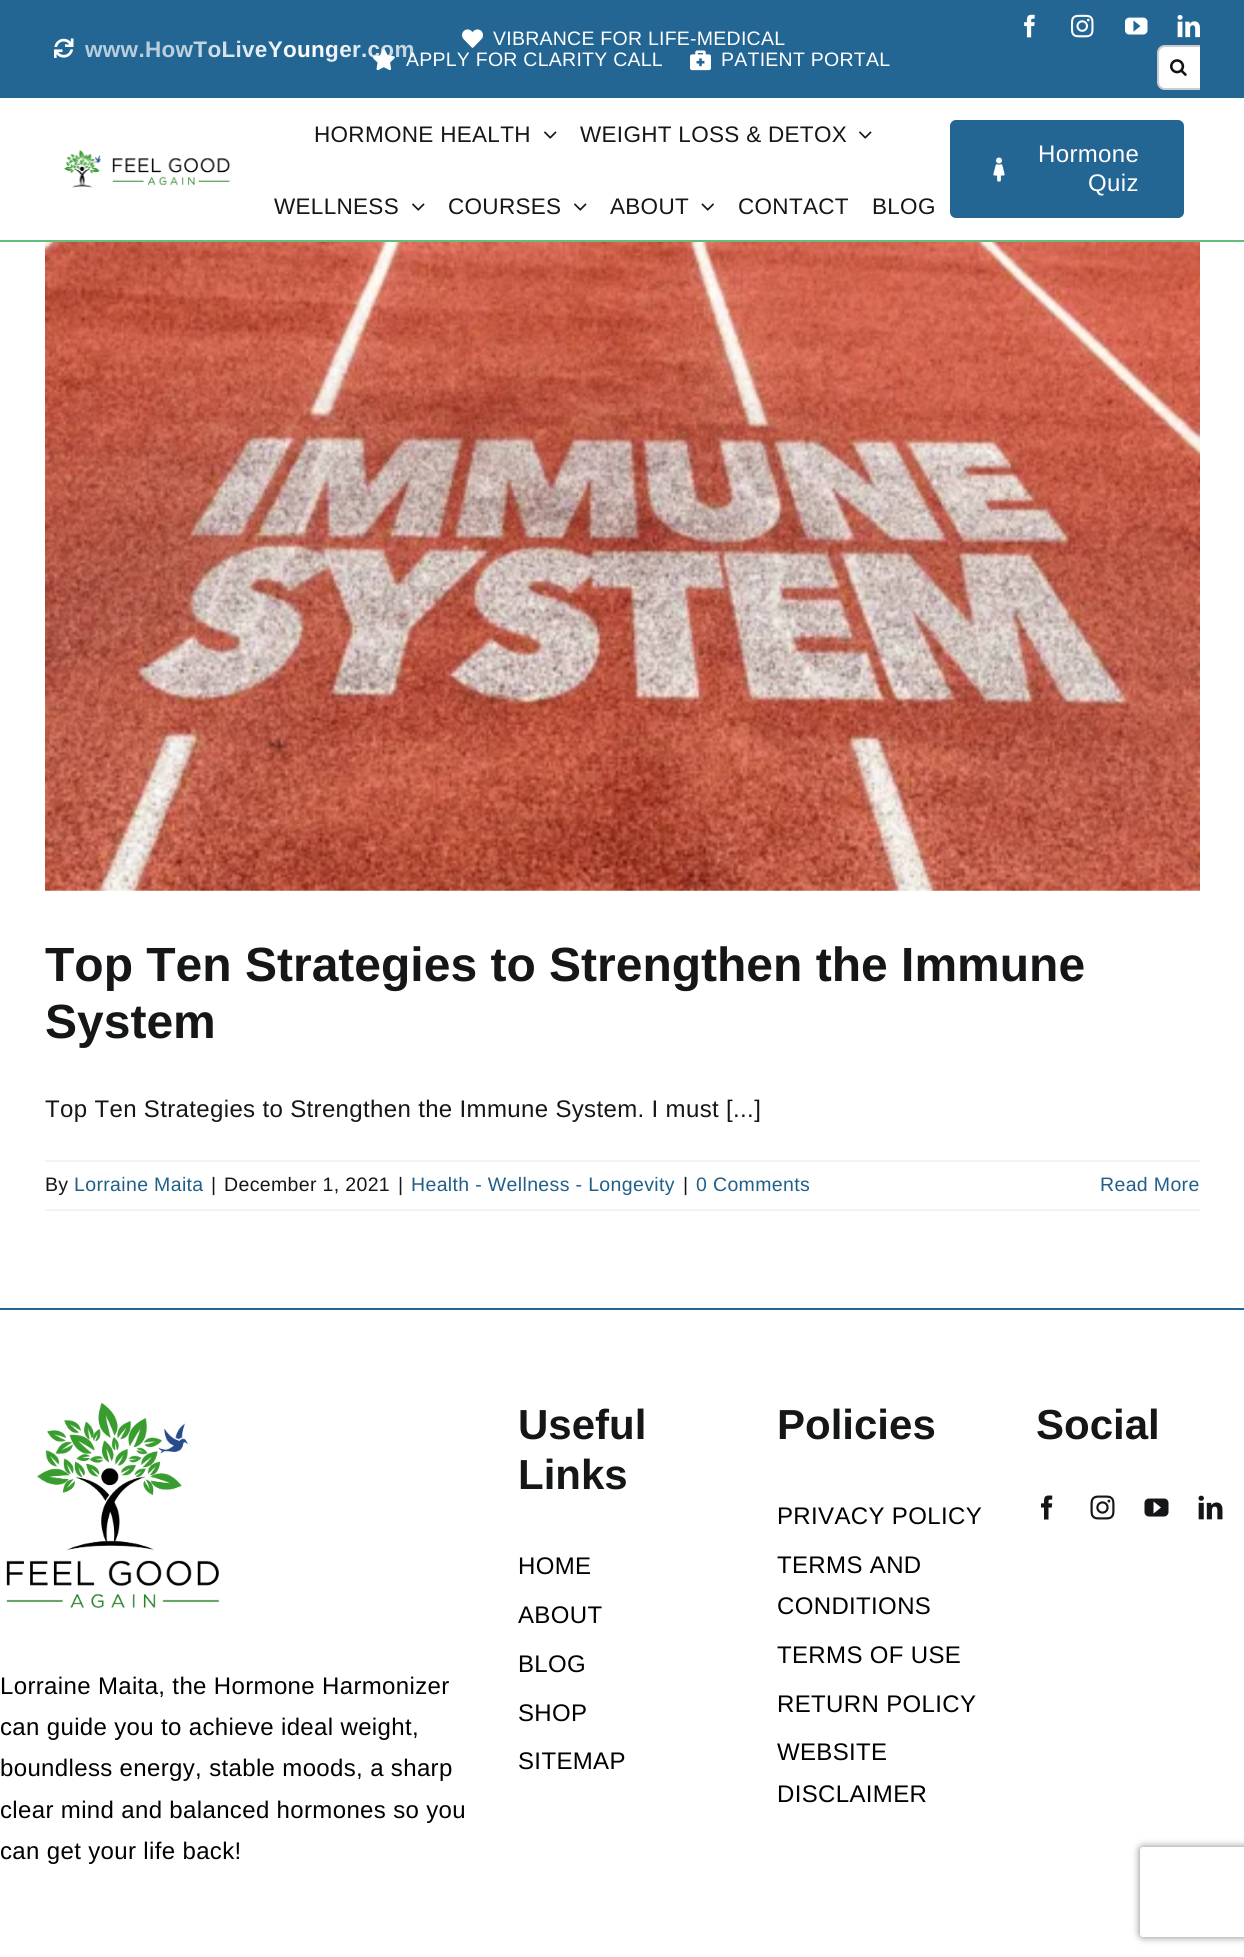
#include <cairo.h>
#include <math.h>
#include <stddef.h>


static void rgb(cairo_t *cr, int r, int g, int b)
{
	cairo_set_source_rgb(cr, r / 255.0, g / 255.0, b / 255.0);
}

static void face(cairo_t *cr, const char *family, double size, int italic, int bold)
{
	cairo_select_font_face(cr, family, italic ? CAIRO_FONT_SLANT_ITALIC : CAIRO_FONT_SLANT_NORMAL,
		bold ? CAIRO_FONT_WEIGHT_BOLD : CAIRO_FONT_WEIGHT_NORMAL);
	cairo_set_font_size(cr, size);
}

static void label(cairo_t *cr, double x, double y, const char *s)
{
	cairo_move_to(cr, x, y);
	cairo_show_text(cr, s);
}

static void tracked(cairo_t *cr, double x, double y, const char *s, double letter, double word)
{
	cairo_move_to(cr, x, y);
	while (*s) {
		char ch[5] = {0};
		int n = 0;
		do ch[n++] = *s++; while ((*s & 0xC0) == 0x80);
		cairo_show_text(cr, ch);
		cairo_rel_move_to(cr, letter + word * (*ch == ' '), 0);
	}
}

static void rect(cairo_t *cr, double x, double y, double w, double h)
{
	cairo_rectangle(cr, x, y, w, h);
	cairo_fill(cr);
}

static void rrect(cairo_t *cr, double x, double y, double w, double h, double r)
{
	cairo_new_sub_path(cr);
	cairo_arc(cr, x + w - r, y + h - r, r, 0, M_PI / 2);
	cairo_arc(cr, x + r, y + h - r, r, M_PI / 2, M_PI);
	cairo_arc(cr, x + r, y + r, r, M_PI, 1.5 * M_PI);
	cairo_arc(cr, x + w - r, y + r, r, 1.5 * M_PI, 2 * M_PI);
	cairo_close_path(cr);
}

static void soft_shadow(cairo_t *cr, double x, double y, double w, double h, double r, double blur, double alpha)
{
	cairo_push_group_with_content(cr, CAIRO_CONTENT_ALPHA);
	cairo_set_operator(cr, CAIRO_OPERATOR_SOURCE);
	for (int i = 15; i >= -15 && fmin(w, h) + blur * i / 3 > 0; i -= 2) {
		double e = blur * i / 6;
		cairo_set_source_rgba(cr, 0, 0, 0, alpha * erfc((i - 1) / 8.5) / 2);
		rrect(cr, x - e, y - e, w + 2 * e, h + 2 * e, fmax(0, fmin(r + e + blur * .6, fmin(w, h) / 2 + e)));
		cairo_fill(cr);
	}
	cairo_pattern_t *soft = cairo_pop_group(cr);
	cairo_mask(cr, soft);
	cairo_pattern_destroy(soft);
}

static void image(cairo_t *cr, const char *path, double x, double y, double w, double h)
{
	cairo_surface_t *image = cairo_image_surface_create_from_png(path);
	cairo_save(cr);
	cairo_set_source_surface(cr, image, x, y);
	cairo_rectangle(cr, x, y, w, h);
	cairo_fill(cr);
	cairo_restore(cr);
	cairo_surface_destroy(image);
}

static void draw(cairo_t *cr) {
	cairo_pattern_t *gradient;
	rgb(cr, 255, 255, 255);
	cairo_paint(cr);
	rgb(cr, 35, 102, 147);
	rect(cr, 0, 0, 1244, 98);
	image(cr, "image0.png", 54, 38, 20, 20);
	face(cr, "Liberation Sans", 22.5, 0, 1);
	gradient = cairo_pattern_create_linear(162, -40, 338, 137);
	cairo_pattern_add_color_stop_rgba(gradient, 0, 0.725, 0.808, 0.863, 1);
	cairo_pattern_add_color_stop_rgba(gradient, 0.29, 0.725, 0.808, 0.863, 1);
	cairo_pattern_add_color_stop_rgba(gradient, 0.67, 1, 1, 1, 1);
	cairo_pattern_add_color_stop_rgba(gradient, 1, 0.725, 0.808, 0.863, 1);
	cairo_set_source(cr, gradient);
	cairo_pattern_destroy(gradient);
	tracked(cr, 85, 57, "www.HowToLiveYounger.com", 0.3, 0);
	image(cr, "image1.png", 462, 29, 21, 19);
	face(cr, "Liberation Sans", 19.5, 0, 0);
	rgb(cr, 255, 255, 255);
	tracked(cr, 493, 45, "VIBRANCE FOR LIFE-MEDICAL", 0.25, 0);
	image(cr, "image2.png", 372, 49, 23, 22);
	tracked(cr, 406, 66, "APPLY FOR CLARITY CALL", 0.25, 0);
	image(cr, "image3.png", 690, 50, 21, 21);
	tracked(cr, 721, 66, "PATIENT PORTAL", 0.25, 0);
	image(cr, "image4.png", 1024, 14, 11, 24);
	image(cr, "image5.png", 1071, 14, 23, 24);
	image(cr, "image6.png", 1125, 17, 23, 18);
	image(cr, "image7.png", 1177, 15, 23, 23);
	cairo_new_path(cr);
	cairo_move_to(cr, 1165, 45);
	cairo_line_to(cr, 1200, 45);
	cairo_line_to(cr, 1200, 90);
	cairo_line_to(cr, 1165, 90);
	cairo_curve_to(cr, 1160.5, 90, 1157, 86.5, 1157, 82);
	cairo_line_to(cr, 1157, 53);
	cairo_curve_to(cr, 1157, 48.5, 1160.5, 45, 1165, 45);
	cairo_close_path(cr);
	cairo_fill(cr);
	cairo_save(cr);
	cairo_rectangle(cr, 1157, 45, 43, 45);
	cairo_clip(cr);
	rrect(cr, 1158, 46, 68, 43, 7);
	cairo_set_source_rgba(cr, 0, 0, 0, 0.2);
	cairo_stroke(cr);
	cairo_restore(cr);
	image(cr, "image8.png", 1170, 59, 17, 17);
	rgb(cr, 101, 189, 125);
	rect(cr, 0, 240, 1244, 2);
	image(cr, "image9.png", 64, 149, 167, 39);
	face(cr, "Liberation Sans", 22.5, 0, 0);
	rgb(cr, 20, 22, 23);
	tracked(cr, 314, 142, "HORMONE HEALTH", 0.3, 0);
	image(cr, "image10.png", 544, 131, 13, 8);
	tracked(cr, 580, 142, "WEIGHT LOSS & DETOX", 0.3, 0);
	image(cr, "image10.png", 859, 131, 13, 8);
	tracked(cr, 274, 214, "WELLNESS", 0.3, 0);
	image(cr, "image10.png", 412, 203, 13, 8);
	tracked(cr, 448, 214, "COURSES", 0.3, 0);
	image(cr, "image10.png", 574, 203, 13, 8);
	tracked(cr, 610, 214, "ABOUT", 0.3, 0);
	image(cr, "image11.png", 701, 203, 13, 8);
	tracked(cr, 738, 214, "CONTACT", 0.3, 0);
	tracked(cr, 872, 214, "BLOG", 0.3, 0);
	rgb(cr, 35, 102, 147);
	rrect(cr, 950, 120, 234, 98, 6);
	cairo_fill(cr);
	image(cr, "image12.png", 993, 157, 12, 25);
	face(cr, "Liberation Sans", 24, 0, 0);
	rgb(cr, 255, 255, 255);
	tracked(cr, 1038, 162, "Hormone", 0.35, 0);
	tracked(cr, 1088, 191, "Quiz", 0.35, 0);
	image(cr, "image13.png", 45, 242, 1155, 649);
	face(cr, "Liberation Sans", 48, 0, 1);
	rgb(cr, 20, 22, 23);
	label(cr, 45, 981, "Top Ten Strategies to Strengthen the Immune");
	label(cr, 45, 1038, "System");
	face(cr, "Liberation Sans", 24, 0, 0);
	tracked(cr, 45, 1117, "Top Ten Strategies to Strengthen the Immune System. I must [...]", 0.35, 0);
	rgb(cr, 242, 243, 245);
	rect(cr, 45, 1160, 1155, 2);
	rect(cr, 45, 1209, 1155, 2);
	face(cr, "Liberation Sans", 19.5, 0, 0);
	rgb(cr, 20, 22, 23);
	tracked(cr, 45, 1191, "By", 0.35, 0);
	rgb(cr, 32, 95, 136);
	tracked(cr, 74, 1191, "Lorraine Maita", 0.35, 0);
	rgb(cr, 20, 22, 23);
	tracked(cr, 211, 1191, "|", 0.35, 0);
	tracked(cr, 224, 1191, "December 1, 2021", 0.35, 0);
	tracked(cr, 398, 1191, "|", 0.35, 0);
	rgb(cr, 32, 95, 136);
	tracked(cr, 411, 1191, "Health - Wellness - Longevity", 0.35, 0);
	rgb(cr, 20, 22, 23);
	tracked(cr, 683, 1191, "|", 0.35, 0);
	rgb(cr, 32, 95, 136);
	tracked(cr, 696, 1191, "0 Comments", 0.35, 0);
	tracked(cr, 1100, 1191, "Read More", 0.35, 0);
	rgb(cr, 35, 102, 147);
	rect(cr, 0, 1308, 1244, 2);
	face(cr, "Liberation Sans", 42, 0, 1);
	rgb(cr, 20, 22, 23);
	label(cr, 518, 1439, "Useful");
	label(cr, 518, 1489, "Links");
	face(cr, "Liberation Sans", 24, 0, 0);
	rgb(cr, 0, 0, 0);
	tracked(cr, 518, 1574, "HOME", 0.35, 0);
	tracked(cr, 518, 1623, "ABOUT", 0.35, 0);
	tracked(cr, 518, 1672, "BLOG", 0.35, 0);
	tracked(cr, 518, 1721, "SHOP", 0.35, 0);
	tracked(cr, 518, 1769, "SITEMAP", 0.35, 0);
	face(cr, "Liberation Sans", 42, 0, 1);
	rgb(cr, 20, 22, 23);
	label(cr, 777, 1439, "Policies");
	face(cr, "Liberation Sans", 24, 0, 0);
	rgb(cr, 0, 0, 0);
	tracked(cr, 777, 1524, "PRIVACY POLICY", 0.35, 0);
	tracked(cr, 777, 1573, "TERMS AND", 0.35, 0);
	tracked(cr, 777, 1614, "CONDITIONS", 0.35, 0);
	tracked(cr, 777, 1663, "TERMS OF USE", 0.35, 0);
	tracked(cr, 777, 1712, "RETURN POLICY", 0.35, 0);
	tracked(cr, 777, 1760, "WEBSITE", 0.35, 0);
	tracked(cr, 777, 1802, "DISCLAIMER", 0.35, 0);
	face(cr, "Liberation Sans", 42, 0, 1);
	rgb(cr, 20, 22, 23);
	label(cr, 1036, 1439, "Social");
	image(cr, "image14.png", 1041, 1495, 12, 25);
	image(cr, "image15.png", 1090, 1495, 25, 25);
	image(cr, "image16.png", 1144, 1498, 25, 19);
	image(cr, "image17.png", 1198, 1495, 25, 25);
	image(cr, "image18.png", 6, 1402, 213, 206);
	face(cr, "Liberation Sans", 24, 0, 0);
	rgb(cr, 0, 0, 0);
	tracked(cr, 0, 1694, "Lorraine Maita, the Hormone Harmonizer", 0.35, 0);
	tracked(cr, 0, 1735, "can guide you to achieve ideal weight,", 0.35, 0);
	tracked(cr, 0, 1776, "boundless energy, stable moods, a sharp", 0.35, 0);
	tracked(cr, 0, 1818, "clear mind and balanced hormones so you", 0.35, 0);
	tracked(cr, 0, 1859, "can get your life back!", 0.35, 0);
	cairo_save(cr);
	cairo_set_fill_rule(cr, CAIRO_FILL_RULE_EVEN_ODD);
	cairo_new_path(cr);
	cairo_move_to(cr, 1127, 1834);
	cairo_line_to(cr, 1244, 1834);
	cairo_line_to(cr, 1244, 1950);
	cairo_line_to(cr, 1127, 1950);
	cairo_close_path(cr);
	cairo_move_to(cr, 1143, 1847);
	cairo_line_to(cr, 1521, 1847);
	cairo_curve_to(cr, 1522.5, 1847, 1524, 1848.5, 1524, 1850);
	cairo_line_to(cr, 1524, 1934);
	cairo_curve_to(cr, 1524, 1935.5, 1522.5, 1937, 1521, 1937);
	cairo_line_to(cr, 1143, 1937);
	cairo_curve_to(cr, 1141.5, 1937, 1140, 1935.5, 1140, 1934);
	cairo_line_to(cr, 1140, 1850);
	cairo_curve_to(cr, 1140, 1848.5, 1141.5, 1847, 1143, 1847);
	cairo_close_path(cr);
	cairo_clip(cr);
	rgb(cr, 128, 128, 128);
	soft_shadow(cr, 1140, 1847, 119, 90, 3, 4, 1);
	cairo_restore(cr);
}

int main(void) {
	cairo_surface_t *surface = cairo_image_surface_create(CAIRO_FORMAT_RGB24, 1244, 1957);
	cairo_t *cr = cairo_create(surface);
	cairo_font_options_t *options = cairo_font_options_create();
	cairo_font_options_set_hint_metrics(options, CAIRO_HINT_METRICS_OFF);
	cairo_font_options_set_hint_style(options, CAIRO_HINT_STYLE_NONE);
	cairo_set_font_options(cr, options);
	cairo_set_miter_limit(cr, 4);
	draw(cr);
	cairo_surface_write_to_png(surface, "render.png");
	cairo_font_options_destroy(options);
	cairo_destroy(cr);
	cairo_surface_destroy(surface);
	return 0;
}
